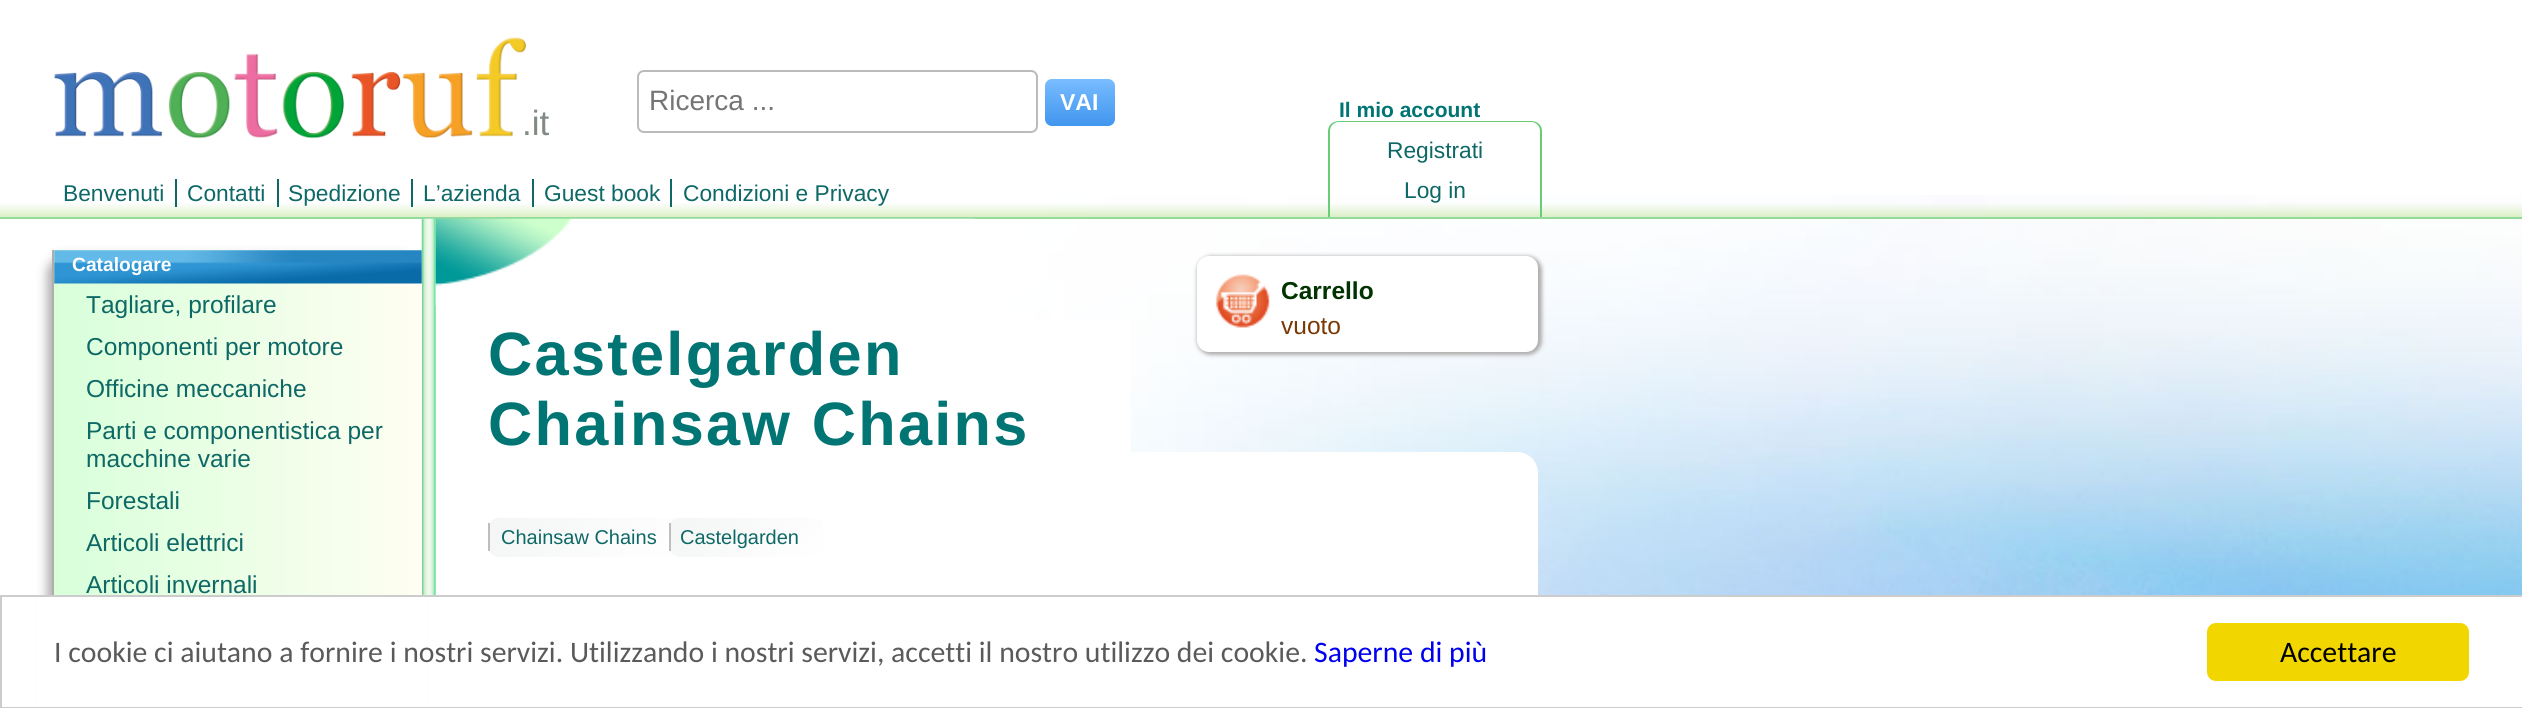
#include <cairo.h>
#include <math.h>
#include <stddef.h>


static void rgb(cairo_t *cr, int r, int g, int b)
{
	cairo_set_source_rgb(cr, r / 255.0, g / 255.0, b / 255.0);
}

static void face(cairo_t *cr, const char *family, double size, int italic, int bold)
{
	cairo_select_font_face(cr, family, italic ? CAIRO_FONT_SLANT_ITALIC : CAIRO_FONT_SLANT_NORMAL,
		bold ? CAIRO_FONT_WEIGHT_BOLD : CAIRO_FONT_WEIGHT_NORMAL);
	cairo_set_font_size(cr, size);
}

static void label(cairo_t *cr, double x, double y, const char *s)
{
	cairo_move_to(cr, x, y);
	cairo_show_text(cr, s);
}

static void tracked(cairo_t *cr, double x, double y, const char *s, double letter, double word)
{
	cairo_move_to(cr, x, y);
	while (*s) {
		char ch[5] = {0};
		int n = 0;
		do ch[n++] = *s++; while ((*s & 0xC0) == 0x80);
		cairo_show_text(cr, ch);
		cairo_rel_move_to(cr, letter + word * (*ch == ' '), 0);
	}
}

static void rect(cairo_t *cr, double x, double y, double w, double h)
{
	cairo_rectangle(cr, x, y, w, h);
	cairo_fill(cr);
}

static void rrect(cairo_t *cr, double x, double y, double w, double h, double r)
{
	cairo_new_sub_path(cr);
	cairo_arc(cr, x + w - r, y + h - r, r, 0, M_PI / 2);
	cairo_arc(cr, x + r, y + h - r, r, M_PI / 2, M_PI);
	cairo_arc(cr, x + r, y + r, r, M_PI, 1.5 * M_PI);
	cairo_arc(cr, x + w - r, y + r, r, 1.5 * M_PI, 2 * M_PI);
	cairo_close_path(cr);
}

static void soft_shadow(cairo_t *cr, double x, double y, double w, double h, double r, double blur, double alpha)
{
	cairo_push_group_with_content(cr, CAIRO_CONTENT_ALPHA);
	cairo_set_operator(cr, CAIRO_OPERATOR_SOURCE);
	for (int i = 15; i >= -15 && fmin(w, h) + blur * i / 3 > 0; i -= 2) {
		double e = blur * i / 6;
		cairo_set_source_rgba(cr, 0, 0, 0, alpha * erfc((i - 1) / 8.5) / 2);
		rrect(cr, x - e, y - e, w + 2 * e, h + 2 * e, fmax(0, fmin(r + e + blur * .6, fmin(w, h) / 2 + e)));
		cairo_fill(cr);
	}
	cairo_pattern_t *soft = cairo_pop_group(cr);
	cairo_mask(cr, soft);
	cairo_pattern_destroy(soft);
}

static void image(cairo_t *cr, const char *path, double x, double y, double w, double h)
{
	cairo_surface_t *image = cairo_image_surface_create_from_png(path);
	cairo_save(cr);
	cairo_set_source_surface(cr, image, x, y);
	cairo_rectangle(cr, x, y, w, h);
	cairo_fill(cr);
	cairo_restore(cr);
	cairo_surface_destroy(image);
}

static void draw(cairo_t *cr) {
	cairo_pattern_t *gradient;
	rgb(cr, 255, 255, 255);
	cairo_paint(cr);
	image(cr, "image0.png", 1016, 195, 1506, 400);
	image(cr, "image1.png", 54, 37, 472, 102);
	face(cr, "Liberation Sans", 35, 0, 0);
	rgb(cr, 130, 138, 132);
	label(cr, 522, 135, ".it");
	rrect(cr, 638, 71, 399, 61, 6);
	rgb(cr, 187, 187, 187);
	cairo_stroke(cr);
	face(cr, "Liberation Sans", 28, 0, 0);
	rgb(cr, 117, 117, 117);
	label(cr, 649, 110, "Ricerca ...");
	gradient = cairo_pattern_create_linear(1080, 79, 1080, 126);
	cairo_pattern_add_color_stop_rgba(gradient, 0, 0.478, 0.737, 1, 1);
	cairo_pattern_add_color_stop_rgba(gradient, 0.44, 0.376, 0.671, 0.973, 1);
	cairo_pattern_add_color_stop_rgba(gradient, 1, 0.251, 0.588, 0.933, 1);
	cairo_set_source(cr, gradient);
	cairo_pattern_destroy(gradient);
	rrect(cr, 1045, 79, 70, 47, 7);
	cairo_fill(cr);
	face(cr, "Liberation Sans", 23, 0, 1);
	rgb(cr, 255, 255, 255);
	label(cr, 1060, 110, "VAI");
	face(cr, "Liberation Sans", 21, 0, 1);
	rgb(cr, 1, 116, 116);
	label(cr, 1339, 117, "Il mio account");
	gradient = cairo_pattern_create_linear(1262, 170, 1262, 217);
	cairo_pattern_add_color_stop_rgba(gradient, 0.69, 0.863, 0.937, 0.78, 0);
	cairo_pattern_add_color_stop_rgba(gradient, 1, 0.863, 0.937, 0.78, 1);
	cairo_set_source(cr, gradient);
	cairo_pattern_destroy(gradient);
	rect(cr, 0, 203, 2522, 14);
	rgb(cr, 104, 205, 118);
	cairo_set_fill_rule(cr, CAIRO_FILL_RULE_EVEN_ODD);
	cairo_new_path(cr);
	cairo_move_to(cr, 1339, 121);
	cairo_line_to(cr, 1531, 121);
	cairo_curve_to(cr, 1537, 121, 1542, 125, 1542, 131);
	cairo_line_to(cr, 1542, 217);
	cairo_line_to(cr, 1328, 217);
	cairo_line_to(cr, 1328, 131);
	cairo_curve_to(cr, 1328, 125, 1333, 121, 1339, 121);
	cairo_close_path(cr);
	cairo_move_to(cr, 1339, 122);
	cairo_line_to(cr, 1531, 122);
	cairo_curve_to(cr, 1536, 122, 1540, 126, 1540, 131);
	cairo_line_to(cr, 1540, 217);
	cairo_line_to(cr, 1330, 217);
	cairo_line_to(cr, 1330, 131);
	cairo_curve_to(cr, 1330, 126, 1334, 122, 1339, 122);
	cairo_close_path(cr);
	cairo_fill(cr);
	face(cr, "Liberation Sans", 22.75, 0, 0);
	rgb(cr, 13, 104, 102);
	label(cr, 1387, 158, "Registrati");
	label(cr, 1404, 198, "Log in");
	cairo_set_source_rgba(cr, 0.408, 0.804, 0.463, 0.73);
	rect(cr, 0, 217, 2522, 2);
	rgb(cr, 13, 104, 102);
	label(cr, 63, 201, "Benvenuti");
	rect(cr, 175, 179, 2, 28);
	label(cr, 187, 201, "Contatti");
	rect(cr, 277, 179, 2, 28);
	label(cr, 288, 201, "Spedizione");
	rect(cr, 411, 179, 2, 28);
	label(cr, 423, 201, "L’azienda");
	rect(cr, 532, 179, 2, 28);
	label(cr, 544, 201, "Guest book");
	rect(cr, 670, 179, 2, 28);
	label(cr, 683, 201, "Condizioni e Privacy");
	image(cr, "image3.png", 421, 218, 15, 377);
	rgb(cr, 176, 173, 173);
	soft_shadow(cr, 47, 256, 370, 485, 18, 5, 1);
	gradient = cairo_pattern_create_linear(54, 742, 422, 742);
	cairo_pattern_add_color_stop_rgba(gradient, 0, 0.847, 1, 0.855, 1);
	cairo_pattern_add_color_stop_rgba(gradient, 1, 1, 0.996, 0.949, 1);
	cairo_set_source(cr, gradient);
	cairo_pattern_destroy(gradient);
	rect(cr, 54, 250, 368, 345);
	rgb(cr, 176, 173, 173);
	cairo_new_path(cr);
	cairo_move_to(cr, 52, 250);
	cairo_line_to(cr, 422, 250);
	cairo_line_to(cr, 422, 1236);
	cairo_line_to(cr, 70, 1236);
	cairo_curve_to(cr, 60, 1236, 52, 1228, 52, 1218);
	cairo_close_path(cr);
	cairo_move_to(cr, 54, 250);
	cairo_line_to(cr, 422, 250);
	cairo_line_to(cr, 422, 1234);
	cairo_line_to(cr, 70, 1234);
	cairo_curve_to(cr, 61, 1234, 54, 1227, 54, 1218);
	cairo_close_path(cr);
	cairo_fill(cr);
	image(cr, "image2.png", 54, 250, 368, 34);
	face(cr, "Liberation Sans", 19.25, 0, 1);
	rgb(cr, 255, 255, 255);
	label(cr, 72, 271, "Catalogare");
	face(cr, "Liberation Sans", 24.5, 0, 0);
	rgb(cr, 13, 104, 102);
	label(cr, 86, 313, "Tagliare, profilare");
	label(cr, 86, 355, "Componenti per motore");
	label(cr, 86, 397, "Officine meccaniche");
	label(cr, 86, 439, "Parti e componentistica per");
	label(cr, 86, 467, "macchine varie");
	label(cr, 86, 509, "Forestali");
	label(cr, 86, 551, "Articoli elettrici");
	label(cr, 86, 593, "Articoli invernali");
	rgb(cr, 255, 255, 255);
	rect(cr, 1016, 321, 115, 131);
	image(cr, "image4.png", 435, 218, 540, 89);
	face(cr, "Liberation Sans", 61.25, 0, 1);
	rgb(cr, 1, 116, 116);
	tracked(cr, 488, 375, "Castelgarden", 2.3, 0);
	tracked(cr, 488, 445, "Chainsaw Chains", 2.3, 0);
	rgb(cr, 255, 255, 255);
	cairo_new_path(cr);
	cairo_move_to(cr, 436, 452);
	cairo_line_to(cr, 1517, 452);
	cairo_curve_to(cr, 1528.5, 452, 1538, 461.5, 1538, 473);
	cairo_line_to(cr, 1538, 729);
	cairo_line_to(cr, 436, 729);
	cairo_close_path(cr);
	cairo_fill(cr);
	cairo_save(cr);
	cairo_set_fill_rule(cr, CAIRO_FILL_RULE_WINDING);
	rrect(cr, 488, 518, 195, 39, 11);
	cairo_clip(cr);
	gradient = cairo_pattern_create_linear(529, 480, 644, 595);
	cairo_pattern_add_color_stop_rgba(gradient, 0, 0.953, 0.965, 0.957, 1);
	cairo_pattern_add_color_stop_rgba(gradient, 1, 1, 1, 1, 1);
	cairo_set_source(cr, gradient);
	cairo_pattern_destroy(gradient);
	cairo_new_path(cr);
	cairo_move_to(cr, 490, 518);
	cairo_line_to(cr, 672, 518);
	cairo_curve_to(cr, 678, 518, 683, 523, 683, 529);
	cairo_line_to(cr, 683, 546);
	cairo_curve_to(cr, 683, 552, 678, 557, 672, 557);
	cairo_line_to(cr, 490, 557);
	cairo_close_path(cr);
	cairo_fill(cr);
	cairo_restore(cr);
	rgb(cr, 191, 190, 190);
	rect(cr, 488, 523, 2, 28);
	face(cr, "Liberation Sans", 20, 0, 0);
	rgb(cr, 13, 104, 102);
	label(cr, 501, 544, "Chainsaw Chains");
	cairo_save(cr);
	cairo_set_fill_rule(cr, CAIRO_FILL_RULE_WINDING);
	rrect(cr, 669, 518, 155, 39, 11);
	cairo_clip(cr);
	gradient = cairo_pattern_create_linear(699, 489, 795, 585);
	cairo_pattern_add_color_stop_rgba(gradient, 0, 0.953, 0.965, 0.957, 1);
	cairo_pattern_add_color_stop_rgba(gradient, 1, 1, 1, 1, 1);
	cairo_set_source(cr, gradient);
	cairo_pattern_destroy(gradient);
	cairo_new_path(cr);
	cairo_move_to(cr, 670, 518);
	cairo_line_to(cr, 813, 518);
	cairo_curve_to(cr, 819, 518, 824, 523, 824, 529);
	cairo_line_to(cr, 824, 546);
	cairo_curve_to(cr, 824, 552, 819, 557, 813, 557);
	cairo_line_to(cr, 670, 557);
	cairo_close_path(cr);
	cairo_fill(cr);
	cairo_restore(cr);
	rgb(cr, 191, 190, 190);
	rect(cr, 669, 523, 2, 28);
	rgb(cr, 13, 104, 102);
	label(cr, 680, 544, "Castelgarden");
	rgb(cr, 176, 173, 173);
	soft_shadow(cr, 1197, 256, 345, 99, 14, 2, 1);
	rgb(cr, 255, 255, 255);
	rrect(cr, 1197, 256, 341, 96, 12);
	cairo_fill(cr);
	image(cr, "image5.png", 1215, 274, 55, 54);
	face(cr, "Liberation Sans", 24.5, 0, 1);
	rgb(cr, 0, 51, 0);
	label(cr, 1281, 299, "Carrello");
	face(cr, "Liberation Sans", 24.5, 0, 0);
	rgb(cr, 122, 56, 5);
	label(cr, 1281, 334, "vuoto");
	rgb(cr, 255, 255, 255);
	rect(cr, 38, 597, 388, 110);
	cairo_rectangle(cr, 1, 596, 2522, 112);
	rgb(cr, 204, 204, 204);
	cairo_stroke(cr);
	face(cr, "Carlito", 29.75, 0, 0);
	rgb(cr, 90, 90, 90);
	label(cr, 54, 662, "I cookie ci aiutano a fornire i nostri servizi. Utilizzando i nostri servizi, accetti il nostro utilizzo dei cookie.");
	rgb(cr, 0, 0, 238);
	label(cr, 1314, 662, "Saperne di più");
	rgb(cr, 241, 214, 0);
	rrect(cr, 2207, 623, 262, 58, 9);
	cairo_fill(cr);
	rgb(cr, 0, 0, 0);
	label(cr, 2280, 662, "Accettare");
}

int main(void) {
	cairo_surface_t *surface = cairo_image_surface_create(CAIRO_FORMAT_RGB24, 2522, 708);
	cairo_t *cr = cairo_create(surface);
	cairo_font_options_t *options = cairo_font_options_create();
	cairo_font_options_set_hint_metrics(options, CAIRO_HINT_METRICS_OFF);
	cairo_font_options_set_hint_style(options, CAIRO_HINT_STYLE_NONE);
	cairo_set_font_options(cr, options);
	cairo_set_miter_limit(cr, 4);
	draw(cr);
	cairo_surface_write_to_png(surface, "render.png");
	cairo_font_options_destroy(options);
	cairo_destroy(cr);
	cairo_surface_destroy(surface);
	return 0;
}
